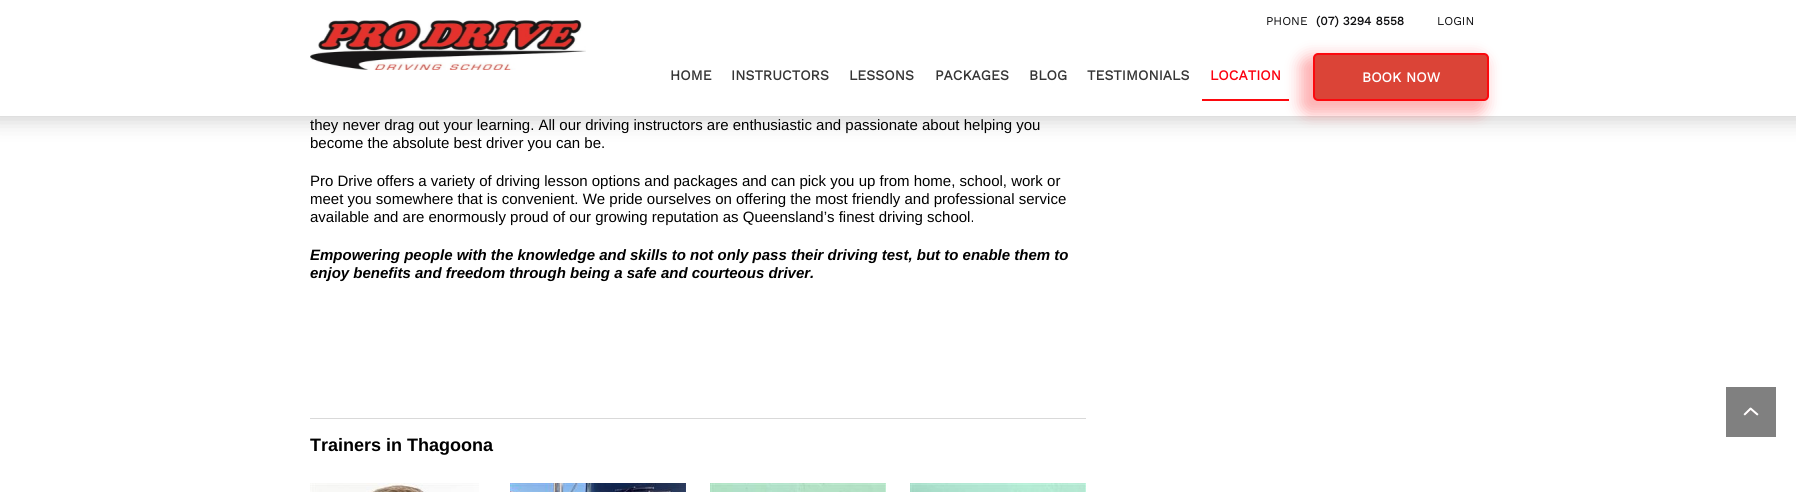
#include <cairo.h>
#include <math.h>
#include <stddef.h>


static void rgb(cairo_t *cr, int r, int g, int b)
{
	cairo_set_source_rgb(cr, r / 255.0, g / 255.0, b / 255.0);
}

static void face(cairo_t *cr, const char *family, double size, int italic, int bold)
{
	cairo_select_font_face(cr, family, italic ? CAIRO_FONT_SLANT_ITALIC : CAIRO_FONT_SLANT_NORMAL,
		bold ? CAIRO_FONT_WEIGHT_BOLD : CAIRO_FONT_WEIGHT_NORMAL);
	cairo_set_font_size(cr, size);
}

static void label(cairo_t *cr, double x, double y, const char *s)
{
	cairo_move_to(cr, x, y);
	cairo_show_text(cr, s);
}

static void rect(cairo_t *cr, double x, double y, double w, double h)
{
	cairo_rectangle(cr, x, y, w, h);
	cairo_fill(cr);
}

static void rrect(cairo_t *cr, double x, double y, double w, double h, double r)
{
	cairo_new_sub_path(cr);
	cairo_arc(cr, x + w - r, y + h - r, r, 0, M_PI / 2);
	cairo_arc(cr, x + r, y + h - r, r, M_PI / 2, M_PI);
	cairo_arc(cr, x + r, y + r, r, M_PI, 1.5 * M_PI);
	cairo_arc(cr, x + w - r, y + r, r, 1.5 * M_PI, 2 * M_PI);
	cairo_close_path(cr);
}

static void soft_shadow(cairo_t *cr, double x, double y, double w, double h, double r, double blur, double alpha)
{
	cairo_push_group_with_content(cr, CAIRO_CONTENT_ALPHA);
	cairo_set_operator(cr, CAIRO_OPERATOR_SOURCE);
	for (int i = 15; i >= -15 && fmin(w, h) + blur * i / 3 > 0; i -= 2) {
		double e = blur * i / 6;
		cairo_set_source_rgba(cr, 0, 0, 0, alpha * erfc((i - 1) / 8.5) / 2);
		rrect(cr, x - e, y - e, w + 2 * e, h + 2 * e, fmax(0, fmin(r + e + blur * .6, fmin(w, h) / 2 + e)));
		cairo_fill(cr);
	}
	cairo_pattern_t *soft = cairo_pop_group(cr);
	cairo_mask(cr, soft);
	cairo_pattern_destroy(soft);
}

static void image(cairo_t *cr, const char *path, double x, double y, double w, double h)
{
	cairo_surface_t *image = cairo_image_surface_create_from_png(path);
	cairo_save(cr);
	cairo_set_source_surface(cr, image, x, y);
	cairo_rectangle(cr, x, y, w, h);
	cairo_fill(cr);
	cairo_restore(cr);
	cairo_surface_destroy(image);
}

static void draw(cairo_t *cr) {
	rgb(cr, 255, 255, 255);
	cairo_paint(cr);
	cairo_save(cr);
	cairo_rectangle(cr, 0, 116, 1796, 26);
	cairo_clip(cr);
	rgb(cr, 204, 204, 204);
	soft_shadow(cr, -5, -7, 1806, 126, 0, 11, 1);
	cairo_restore(cr);
	image(cr, "image0.png", 310, 20, 276, 50);
	face(cr, "Work Sans", 12, 0, 0);
	rgb(cr, 14, 14, 16);
	label(cr, 1266, 25, "PHONE");
	face(cr, "Work Sans", 12, 0, 1);
	label(cr, 1316, 25, "(07) 3294 8558");
	face(cr, "Work Sans", 12, 0, 0);
	label(cr, 1437, 25, "LOGIN");
	face(cr, "Work Sans", 14, 0, 1);
	rgb(cr, 54, 54, 54);
	label(cr, 670, 80, "HOME");
	label(cr, 731, 80, "INSTRUCTORS");
	label(cr, 849, 80, "LESSONS");
	label(cr, 935, 80, "PACKAGES");
	label(cr, 1029, 80, "BLOG");
	label(cr, 1087, 80, "TESTIMONIALS");
	rgb(cr, 252, 9, 14);
	rect(cr, 1202, 99, 87, 2);
	rgb(cr, 252, 1, 16);
	label(cr, 1210, 80, "LOCATION");
	rgb(cr, 252, 9, 14);
	soft_shadow(cr, 1300, 56, 186, 58, 10, 7.5, 0.32);
	rgb(cr, 219, 68, 55);
	rrect(cr, 1314, 54, 174, 46, 4);
	cairo_fill_preserve(cr);
	rgb(cr, 252, 9, 14);
	cairo_stroke(cr);
	rgb(cr, 255, 255, 255);
	label(cr, 1362, 82, "BOOK NOW");
	face(cr, "Liberation Sans", 15, 0, 0);
	rgb(cr, 0, 0, 0);
	label(cr, 310, 130, "they never drag out your learning. All our driving instructors are enthusiastic and passionate about helping you");
	label(cr, 310, 148, "become the absolute best driver you can be.");
	label(cr, 310, 186, "Pro Drive offers a variety of driving lesson options and packages and can pick you up from home, school, work or");
	label(cr, 310, 204, "meet you somewhere that is convenient. We pride ourselves on offering the most friendly and professional service");
	label(cr, 310, 222, "available and are enormously proud of our growing reputation as Queensland’s finest driving school.");
	face(cr, "Liberation Sans", 15, 1, 1);
	label(cr, 310, 260, "Empowering people with the knowledge and skills to not only pass their driving test, but to enable them to");
	label(cr, 310, 278, "enjoy benefits and freedom through being a safe and courteous driver.");
	rgb(cr, 217, 217, 217);
	rect(cr, 310, 418, 776, 1);
	face(cr, "Liberation Sans", 18, 0, 1);
	rgb(cr, 0, 0, 0);
	label(cr, 310, 451, "Trainers in Thagoona");
	image(cr, "image1.png", 310, 483, 169, 9);
	image(cr, "image2.png", 510, 483, 176, 9);
	image(cr, "image3.png", 710, 483, 176, 9);
	image(cr, "image4.png", 910, 483, 176, 9);
	image(cr, "image5.png", 1726, 387, 50, 50);
}

int main(void) {
	cairo_surface_t *surface = cairo_image_surface_create(CAIRO_FORMAT_RGB24, 1796, 492);
	cairo_t *cr = cairo_create(surface);
	cairo_font_options_t *options = cairo_font_options_create();
	cairo_font_options_set_hint_metrics(options, CAIRO_HINT_METRICS_OFF);
	cairo_font_options_set_hint_style(options, CAIRO_HINT_STYLE_NONE);
	cairo_set_font_options(cr, options);
	cairo_set_miter_limit(cr, 4);
	draw(cr);
	cairo_surface_write_to_png(surface, "render.png");
	cairo_font_options_destroy(options);
	cairo_destroy(cr);
	cairo_surface_destroy(surface);
	return 0;
}
